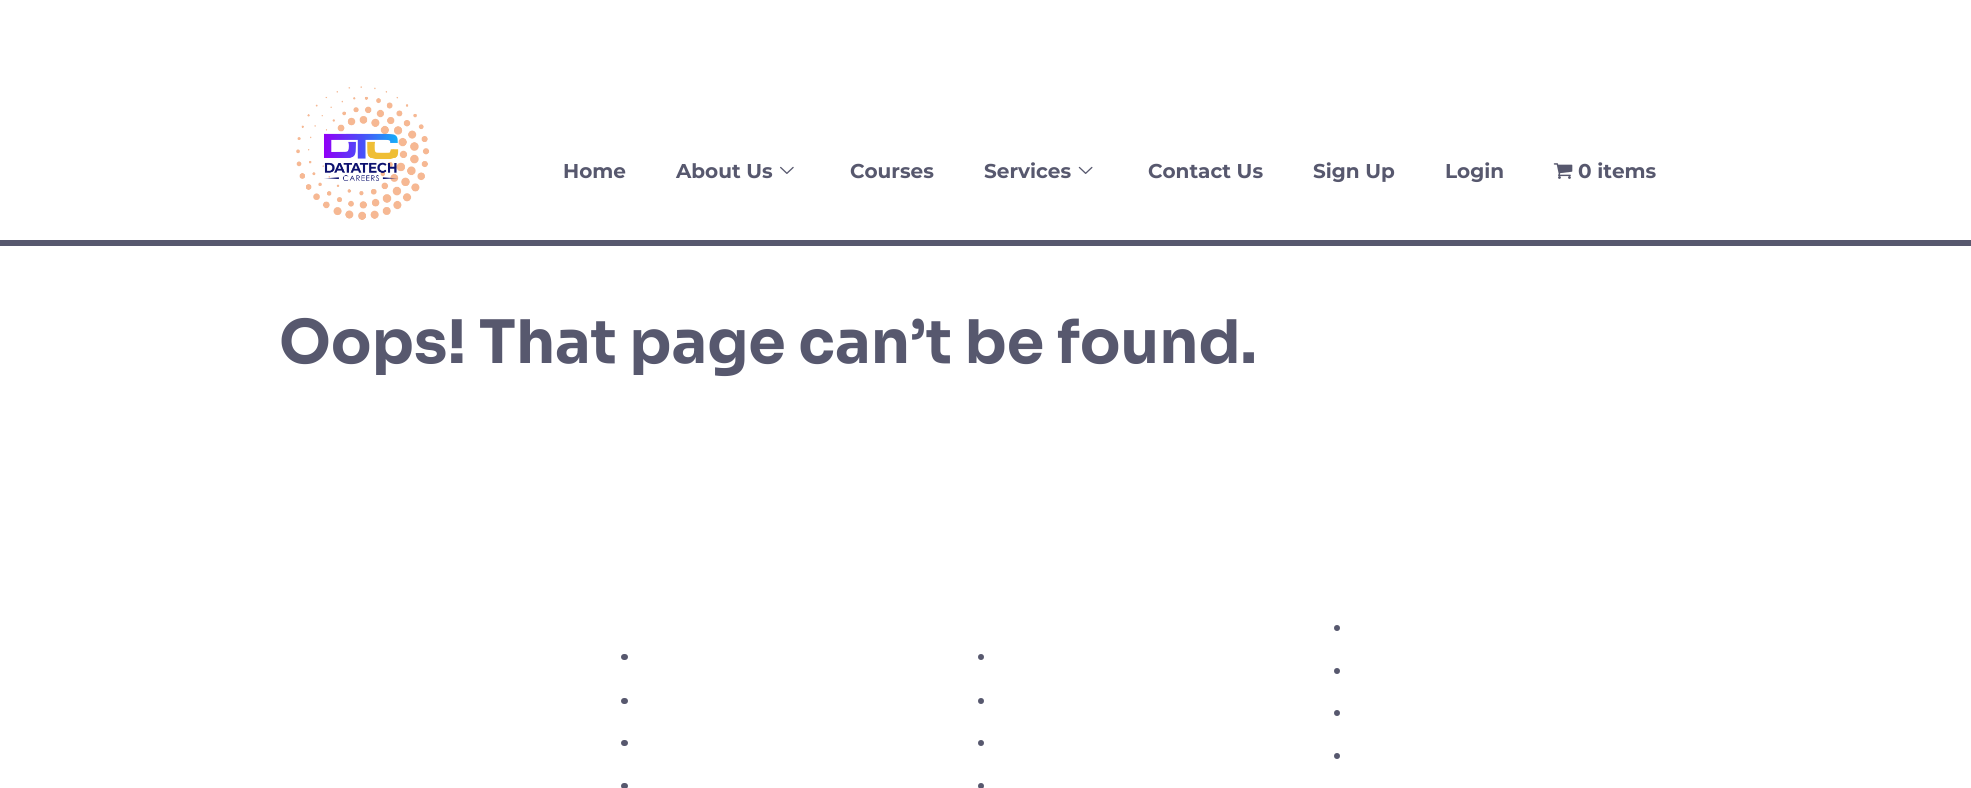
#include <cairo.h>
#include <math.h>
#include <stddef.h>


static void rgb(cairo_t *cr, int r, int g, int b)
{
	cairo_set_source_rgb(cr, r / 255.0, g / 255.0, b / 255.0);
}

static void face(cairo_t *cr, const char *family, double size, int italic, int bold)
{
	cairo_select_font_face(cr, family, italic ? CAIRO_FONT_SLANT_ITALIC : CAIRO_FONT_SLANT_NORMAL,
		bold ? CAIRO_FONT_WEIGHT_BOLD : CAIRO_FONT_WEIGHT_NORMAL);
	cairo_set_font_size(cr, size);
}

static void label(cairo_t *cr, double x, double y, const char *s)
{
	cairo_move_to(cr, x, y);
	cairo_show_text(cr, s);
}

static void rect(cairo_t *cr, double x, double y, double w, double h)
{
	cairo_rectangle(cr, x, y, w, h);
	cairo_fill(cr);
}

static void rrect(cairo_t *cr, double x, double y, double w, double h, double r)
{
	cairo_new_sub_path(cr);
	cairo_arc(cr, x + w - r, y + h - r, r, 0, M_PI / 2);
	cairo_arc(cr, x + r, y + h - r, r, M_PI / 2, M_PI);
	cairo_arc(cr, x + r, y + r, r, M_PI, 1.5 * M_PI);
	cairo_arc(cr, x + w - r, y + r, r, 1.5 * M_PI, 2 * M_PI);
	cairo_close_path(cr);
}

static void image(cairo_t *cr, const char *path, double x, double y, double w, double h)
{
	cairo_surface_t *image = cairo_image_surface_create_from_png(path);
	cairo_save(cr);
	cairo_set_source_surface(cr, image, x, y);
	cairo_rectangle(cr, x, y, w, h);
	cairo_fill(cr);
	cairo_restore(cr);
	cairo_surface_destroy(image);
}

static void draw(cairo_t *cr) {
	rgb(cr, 255, 255, 255);
	cairo_paint(cr);
	rgb(cr, 87, 88, 110);
	rect(cr, 0, 240, 1971, 6);
	image(cr, "image0.png", 296, 86, 134, 134);
	face(cr, "Montserrat", 20, 0, 1);
	label(cr, 563, 178, "Home");
	label(cr, 676, 178, "About Us");
	image(cr, "image1.png", 780, 166, 14, 8);
	label(cr, 850, 178, "Courses");
	label(cr, 984, 178, "Services");
	image(cr, "image2.png", 1078, 166, 15, 8);
	label(cr, 1148, 178, "Contact Us");
	label(cr, 1313, 178, "Sign Up");
	label(cr, 1445, 178, "Login");
	image(cr, "image3.png", 1553, 163, 20, 16);
	label(cr, 1578, 178, "0 items");
	face(cr, "Sora", 60, 0, 1);
	label(cr, 279, 363, "Oops! That page can’t be found.");
	rrect(cr, 621, 654, 7, 6, 3);
	cairo_fill(cr);
	rrect(cr, 621, 698, 7, 6, 3);
	cairo_fill(cr);
	rrect(cr, 621, 740, 7, 6, 3);
	cairo_fill(cr);
	rrect(cr, 621, 783, 7, 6, 3);
	cairo_fill(cr);
	cairo_arc(cr, 981, 657, 3, 0, 2 * M_PI);
	cairo_fill(cr);
	cairo_arc(cr, 981, 701, 3, 0, 2 * M_PI);
	cairo_fill(cr);
	cairo_arc(cr, 981, 743, 3, 0, 2 * M_PI);
	cairo_fill(cr);
	cairo_arc(cr, 981, 786, 3, 0, 2 * M_PI);
	cairo_fill(cr);
	cairo_arc(cr, 1337, 628, 3, 0, 2 * M_PI);
	cairo_fill(cr);
	cairo_arc(cr, 1337, 671, 3, 0, 2 * M_PI);
	cairo_fill(cr);
	cairo_arc(cr, 1337, 713, 3, 0, 2 * M_PI);
	cairo_fill(cr);
	cairo_arc(cr, 1337, 756, 3, 0, 2 * M_PI);
	cairo_fill(cr);
}

int main(void) {
	cairo_surface_t *surface = cairo_image_surface_create(CAIRO_FORMAT_RGB24, 1971, 788);
	cairo_t *cr = cairo_create(surface);
	cairo_font_options_t *options = cairo_font_options_create();
	cairo_font_options_set_hint_metrics(options, CAIRO_HINT_METRICS_OFF);
	cairo_font_options_set_hint_style(options, CAIRO_HINT_STYLE_NONE);
	cairo_set_font_options(cr, options);
	cairo_set_miter_limit(cr, 4);
	draw(cr);
	cairo_surface_write_to_png(surface, "render.png");
	cairo_font_options_destroy(options);
	cairo_destroy(cr);
	cairo_surface_destroy(surface);
	return 0;
}
